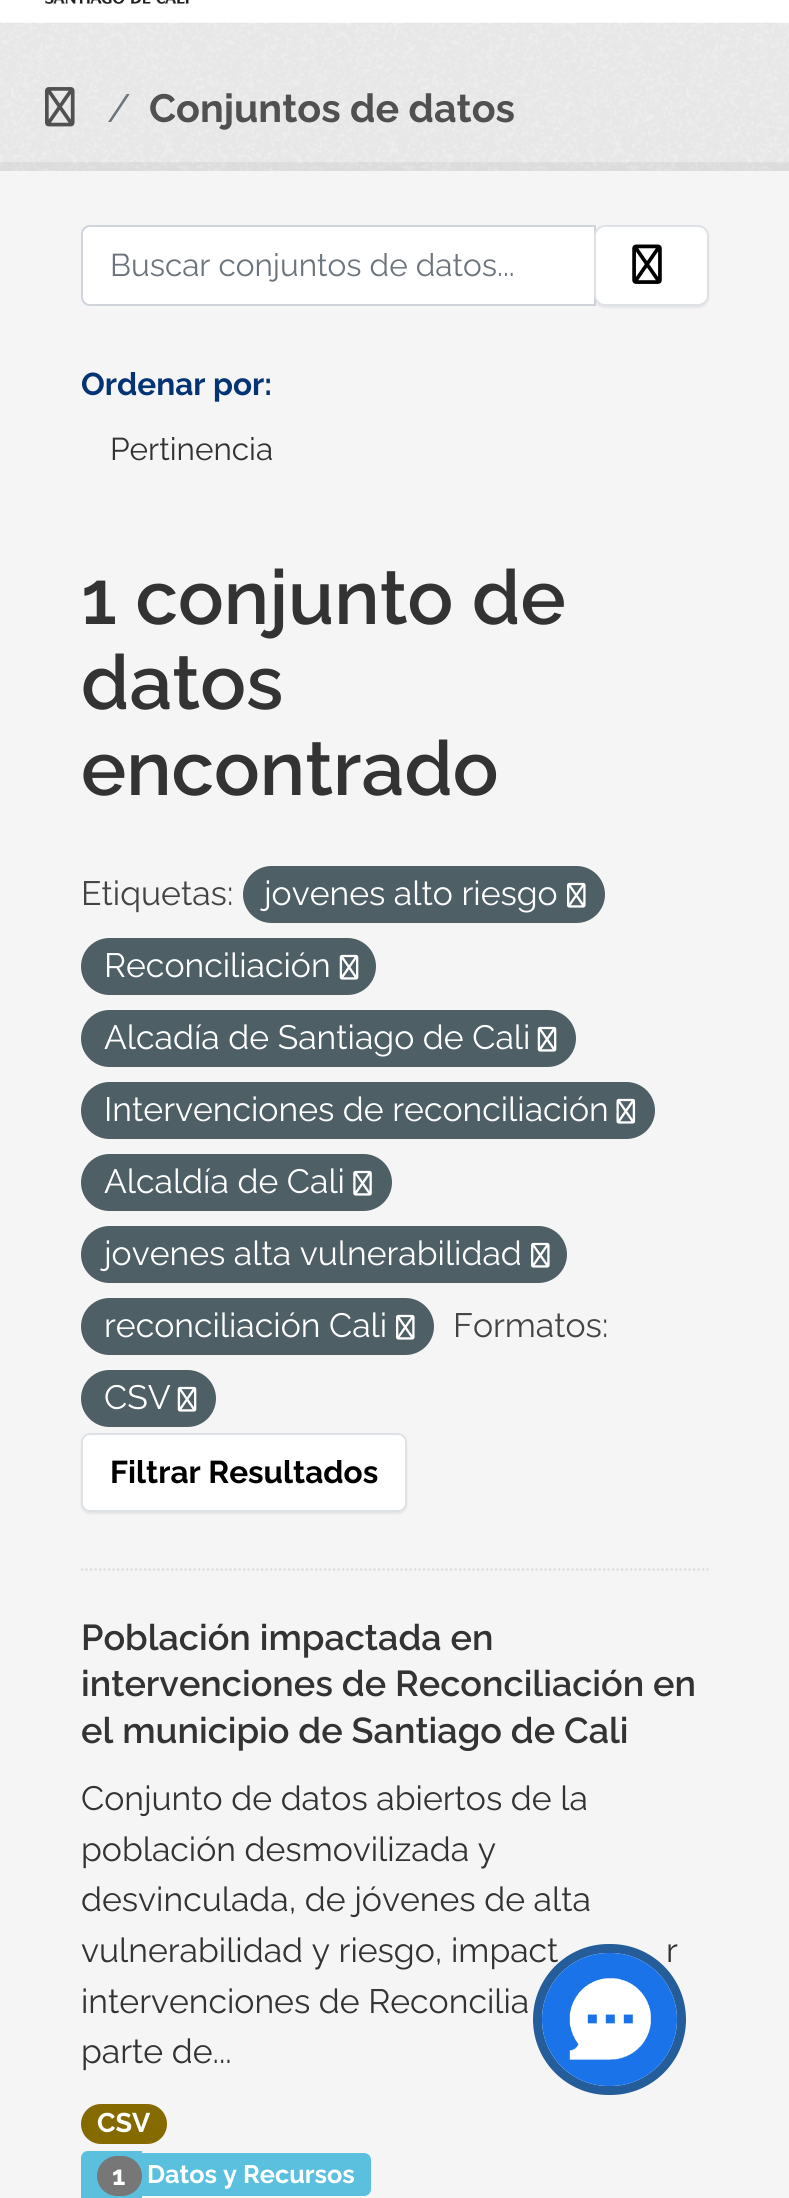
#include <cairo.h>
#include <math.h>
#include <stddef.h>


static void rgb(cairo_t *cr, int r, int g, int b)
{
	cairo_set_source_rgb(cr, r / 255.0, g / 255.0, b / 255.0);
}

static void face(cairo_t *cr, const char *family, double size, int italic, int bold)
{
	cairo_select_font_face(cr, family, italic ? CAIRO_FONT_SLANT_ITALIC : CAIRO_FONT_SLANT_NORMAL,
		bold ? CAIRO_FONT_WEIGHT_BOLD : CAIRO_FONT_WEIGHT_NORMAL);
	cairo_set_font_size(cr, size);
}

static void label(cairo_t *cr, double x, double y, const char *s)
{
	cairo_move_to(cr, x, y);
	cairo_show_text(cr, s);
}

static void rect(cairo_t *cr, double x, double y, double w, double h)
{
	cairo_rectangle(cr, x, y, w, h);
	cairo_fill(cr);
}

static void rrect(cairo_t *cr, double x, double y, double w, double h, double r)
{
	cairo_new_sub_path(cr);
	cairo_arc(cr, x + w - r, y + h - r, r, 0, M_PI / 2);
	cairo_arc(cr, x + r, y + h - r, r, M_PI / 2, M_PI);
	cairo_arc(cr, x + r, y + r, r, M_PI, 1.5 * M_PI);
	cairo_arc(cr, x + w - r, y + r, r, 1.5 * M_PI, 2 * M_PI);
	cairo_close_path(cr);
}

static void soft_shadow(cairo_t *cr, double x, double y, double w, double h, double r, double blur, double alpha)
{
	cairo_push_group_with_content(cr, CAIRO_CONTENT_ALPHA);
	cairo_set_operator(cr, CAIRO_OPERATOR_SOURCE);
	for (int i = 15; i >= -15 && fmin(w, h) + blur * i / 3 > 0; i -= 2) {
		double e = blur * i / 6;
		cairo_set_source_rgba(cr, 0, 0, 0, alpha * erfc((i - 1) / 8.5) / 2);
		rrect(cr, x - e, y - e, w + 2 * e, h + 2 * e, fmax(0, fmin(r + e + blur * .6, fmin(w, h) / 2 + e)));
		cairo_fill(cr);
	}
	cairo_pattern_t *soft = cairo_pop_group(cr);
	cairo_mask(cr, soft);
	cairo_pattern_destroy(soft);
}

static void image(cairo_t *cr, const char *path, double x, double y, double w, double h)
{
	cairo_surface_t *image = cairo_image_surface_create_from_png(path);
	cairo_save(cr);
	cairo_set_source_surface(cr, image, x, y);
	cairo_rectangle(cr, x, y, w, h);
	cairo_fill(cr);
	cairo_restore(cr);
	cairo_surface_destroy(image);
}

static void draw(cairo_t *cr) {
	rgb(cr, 255, 255, 255);
	cairo_paint(cr);
	image(cr, "image0.png", 45, 0, 144, 4);
	rgb(cr, 238, 238, 238);
	rect(cr, 0, 23, 789, 148);
	image(cr, "image1.png", 0, 22, 789, 149);
	image(cr, "image2.png", 45, 87, 30, 40);
	face(cr, "Raleway", 39.4, 0, 0);
	rgb(cr, 108, 117, 125);
	label(cr, 107, 122, "/");
	face(cr, "Raleway", 39.4, 0, 1);
	rgb(cr, 80, 80, 80);
	label(cr, 149, 122, "Conjuntos de datos");
	cairo_rectangle(cr, -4.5, 166.5, 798, 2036);
	cairo_set_source_rgba(cr, 0, 0, 0, 0.05);
	cairo_set_line_width(cr, 9);
	cairo_stroke(cr);
	rgb(cr, 245, 245, 245);
	rect(cr, 0, 171, 789, 2027);
	cairo_new_path(cr);
	cairo_move_to(cr, 81, 1569.5);
	cairo_line_to(cr, 709, 1569.5);
	rgb(cr, 221, 221, 221);
	cairo_set_line_width(cr, 2.2);
	cairo_set_dash(cr, (double[]){2.25, 2.25}, 2, 0);
	cairo_stroke(cr);
	rgb(cr, 255, 255, 255);
	cairo_new_path(cr);
	cairo_move_to(cr, 90, 226);
	cairo_line_to(cr, 595, 226);
	cairo_line_to(cr, 595, 305);
	cairo_line_to(cr, 90, 305);
	cairo_curve_to(cr, 85.5, 305, 82, 301.5, 82, 297);
	cairo_line_to(cr, 82, 234);
	cairo_curve_to(cr, 82, 229.5, 85.5, 226, 90, 226);
	cairo_close_path(cr);
	cairo_fill_preserve(cr);
	rgb(cr, 206, 212, 218);
	cairo_set_line_width(cr, 2);
	cairo_set_dash(cr, NULL, 0, 0);
	cairo_stroke(cr);
	face(cr, "Raleway", 31.5, 0, 0);
	rgb(cr, 108, 117, 125);
	label(cr, 110, 276, "Buscar conjuntos de datos...");
	rgb(cr, 0, 0, 0);
	soft_shadow(cr, 594, 227, 115, 81, 11, 1, 0.07);
	rgb(cr, 255, 255, 255);
	rrect(cr, 595, 226, 113, 79, 10);
	cairo_fill_preserve(cr);
	rgb(cr, 222, 226, 230);
	cairo_stroke(cr);
	image(cr, "image3.png", 632, 244, 30, 40);
	face(cr, "Raleway", 31.5, 0, 1);
	rgb(cr, 4, 52, 116);
	label(cr, 81, 395, "Ordenar por:");
	face(cr, "Raleway", 31.5, 0, 0);
	rgb(cr, 51, 51, 51);
	label(cr, 110, 460, "Pertinencia");
	face(cr, "Raleway SemiBold", 76, 0, 0);
	label(cr, 81, 624, "1 conjunto de");
	label(cr, 81, 709, "datos");
	label(cr, 81, 795, "encontrado");
	face(cr, "Raleway", 33.75, 0, 0);
	rgb(cr, 68, 68, 68);
	label(cr, 81, 905, "Etiquetas:");
	rgb(cr, 78, 95, 101);
	rrect(cr, 243, 866, 362, 57, 28.5);
	cairo_fill(cr);
	rgb(cr, 255, 255, 255);
	label(cr, 264, 905, "jovenes alto riesgo");
	image(cr, "image4.png", 567, 882, 19, 26);
	rgb(cr, 78, 95, 101);
	rrect(cr, 81, 938, 295, 57, 28.5);
	cairo_fill(cr);
	rgb(cr, 255, 255, 255);
	label(cr, 104, 977, "Reconciliación");
	image(cr, "image5.png", 339, 954, 20, 26);
	rgb(cr, 78, 95, 101);
	rrect(cr, 81, 1010, 495, 57, 28.5);
	cairo_fill(cr);
	rgb(cr, 255, 255, 255);
	label(cr, 104, 1049, "Alcadía de Santiago de Cali");
	image(cr, "image5.png", 537, 1026, 20, 26);
	rgb(cr, 78, 95, 101);
	rrect(cr, 81, 1082, 574, 57, 28.5);
	cairo_fill(cr);
	rgb(cr, 255, 255, 255);
	label(cr, 104, 1121, "Intervenciones de reconciliación");
	image(cr, "image6.png", 616, 1098, 20, 26);
	rgb(cr, 78, 95, 101);
	rrect(cr, 81, 1154, 311, 57, 28.5);
	cairo_fill(cr);
	rgb(cr, 255, 255, 255);
	label(cr, 104, 1193, "Alcaldía de Cali");
	image(cr, "image7.png", 353, 1170, 19, 26);
	rgb(cr, 78, 95, 101);
	rrect(cr, 81, 1226, 486, 57, 28.5);
	cairo_fill(cr);
	rgb(cr, 255, 255, 255);
	label(cr, 104, 1265, "jovenes alta vulnerabilidad");
	image(cr, "image4.png", 531, 1242, 19, 26);
	rgb(cr, 78, 95, 101);
	rrect(cr, 81, 1298, 353, 57, 28.5);
	cairo_fill(cr);
	rgb(cr, 255, 255, 255);
	label(cr, 104, 1337, "reconciliación Cali");
	image(cr, "image4.png", 396, 1314, 19, 26);
	rgb(cr, 68, 68, 68);
	label(cr, 453, 1337, "Formatos:");
	rgb(cr, 78, 95, 101);
	rrect(cr, 81, 1370, 135, 57, 28.5);
	cairo_fill(cr);
	rgb(cr, 255, 255, 255);
	label(cr, 104, 1409, "CSV");
	image(cr, "image5.png", 177, 1386, 20, 26);
	rgb(cr, 0, 0, 0);
	soft_shadow(cr, 81, 1436, 326, 78, 9, 1, 0.07);
	rgb(cr, 255, 255, 255);
	rrect(cr, 82, 1434, 324, 77, 8);
	cairo_fill_preserve(cr);
	rgb(cr, 222, 226, 230);
	cairo_stroke(cr);
	face(cr, "Raleway", 31.5, 0, 1);
	rgb(cr, 0, 0, 0);
	label(cr, 110, 1483, "Filtrar Resultados");
	face(cr, "Raleway SemiBold", 36, 0, 0);
	rgb(cr, 51, 51, 51);
	label(cr, 81, 1650, "Población impactada en");
	label(cr, 81, 1696, "intervenciones de Reconciliación en");
	label(cr, 81, 1743, "el municipio de Santiago de Cali");
	face(cr, "Raleway", 33.75, 0, 0);
	label(cr, 81, 1810, "Conjunto de datos abiertos de la");
	label(cr, 81, 1861, "población desmovilizada y");
	label(cr, 81, 1911, "desvinculada, de jóvenes de alta");
	label(cr, 81, 1962, "vulnerabilidad y riesgo, impact");
	label(cr, 666, 1962, "r");
	label(cr, 81, 2013, "intervenciones de Reconcilia");
	label(cr, 81, 2063, "parte de...");
	rgb(cr, 133, 106, 0);
	rrect(cr, 81, 2104, 86, 40, 20);
	cairo_fill(cr);
	face(cr, "Raleway", 27, 0, 1);
	rgb(cr, 255, 255, 255);
	label(cr, 97, 2132, "CSV");
	rgb(cr, 91, 192, 222);
	cairo_new_path(cr);
	cairo_move_to(cr, 88, 2151);
	cairo_line_to(cr, 142, 2151);
	cairo_line_to(cr, 142, 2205);
	cairo_line_to(cr, 88, 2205);
	cairo_curve_to(cr, 84, 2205, 81, 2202, 81, 2198);
	cairo_line_to(cr, 81, 2158);
	cairo_curve_to(cr, 81, 2154, 84, 2151, 88, 2151);
	cairo_close_path(cr);
	cairo_fill(cr);
	cairo_new_path(cr);
	cairo_move_to(cr, 142, 2153);
	cairo_line_to(cr, 364, 2153);
	cairo_curve_to(cr, 368, 2153, 371, 2156, 371, 2160);
	cairo_line_to(cr, 371, 2189);
	cairo_curve_to(cr, 371, 2193, 368, 2196, 364, 2196);
	cairo_line_to(cr, 142, 2196);
	cairo_close_path(cr);
	cairo_fill(cr);
	rgb(cr, 119, 119, 119);
	rrect(cr, 97, 2156, 45, 40, 20);
	cairo_fill(cr);
	rgb(cr, 255, 255, 255);
	label(cr, 112, 2185, "1");
	face(cr, "Raleway", 25.25, 0, 1);
	label(cr, 147, 2183, "Datos y Recursos");
	rrect(cr, 537.5, 1948.5, 144, 142, 71);
	rgb(cr, 37, 92, 154);
	cairo_set_line_width(cr, 9);
	cairo_stroke(cr);
	rgb(cr, 26, 115, 232);
	rrect(cr, 542, 1953, 135, 133, 66.5);
	cairo_fill(cr);
	image(cr, "image8.png", 569, 1978, 82, 82);
}

int main(void) {
	cairo_surface_t *surface = cairo_image_surface_create(CAIRO_FORMAT_RGB24, 789, 2198);
	cairo_t *cr = cairo_create(surface);
	cairo_font_options_t *options = cairo_font_options_create();
	cairo_font_options_set_hint_metrics(options, CAIRO_HINT_METRICS_OFF);
	cairo_font_options_set_hint_style(options, CAIRO_HINT_STYLE_NONE);
	cairo_set_font_options(cr, options);
	cairo_set_miter_limit(cr, 4);
	draw(cr);
	cairo_surface_write_to_png(surface, "render.png");
	cairo_font_options_destroy(options);
	cairo_destroy(cr);
	cairo_surface_destroy(surface);
	return 0;
}
